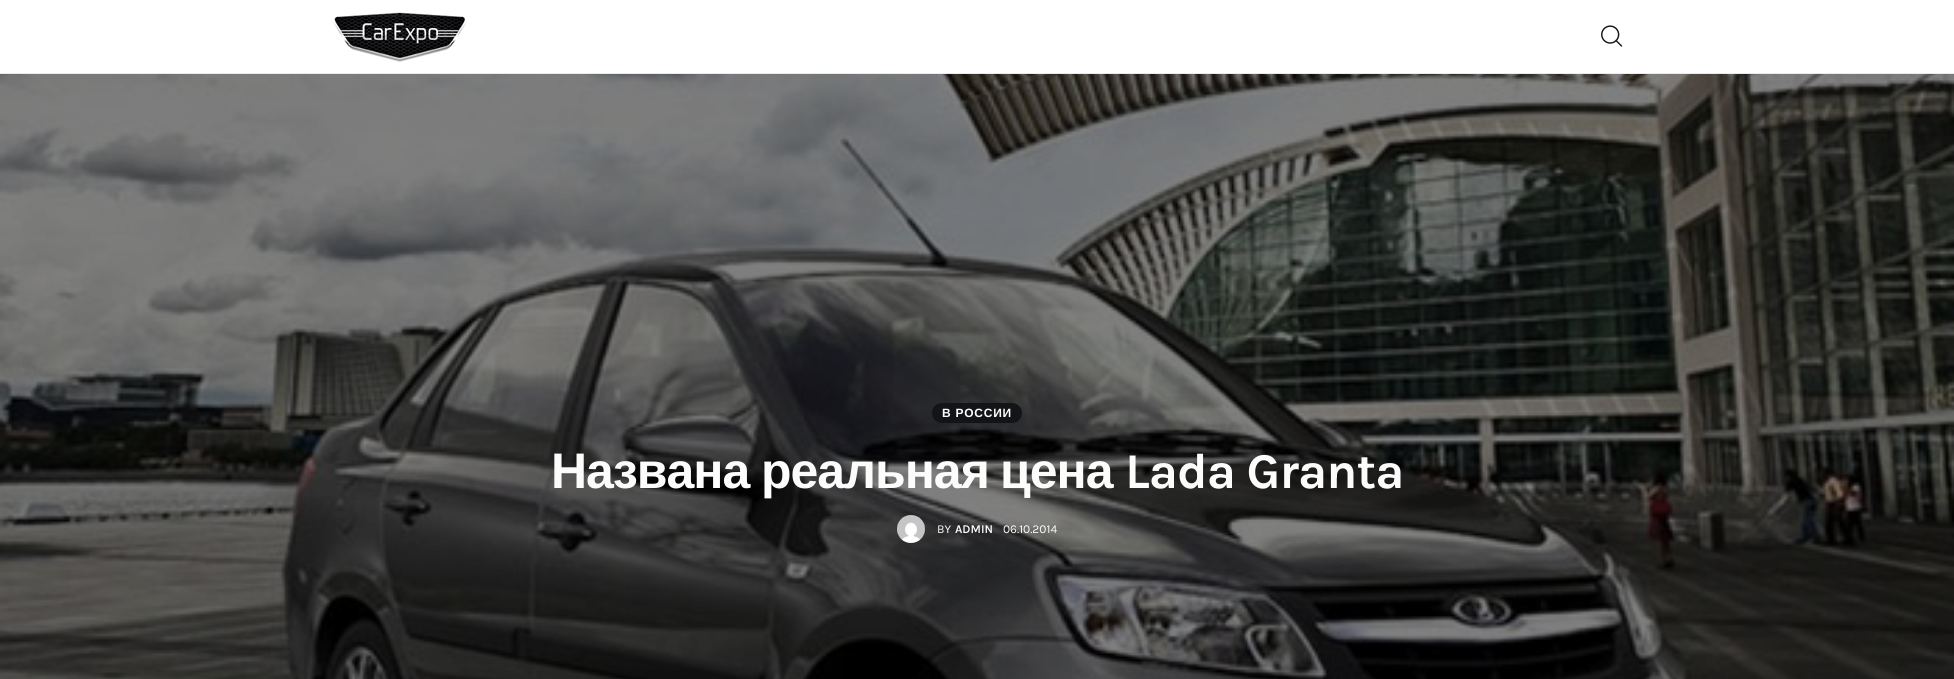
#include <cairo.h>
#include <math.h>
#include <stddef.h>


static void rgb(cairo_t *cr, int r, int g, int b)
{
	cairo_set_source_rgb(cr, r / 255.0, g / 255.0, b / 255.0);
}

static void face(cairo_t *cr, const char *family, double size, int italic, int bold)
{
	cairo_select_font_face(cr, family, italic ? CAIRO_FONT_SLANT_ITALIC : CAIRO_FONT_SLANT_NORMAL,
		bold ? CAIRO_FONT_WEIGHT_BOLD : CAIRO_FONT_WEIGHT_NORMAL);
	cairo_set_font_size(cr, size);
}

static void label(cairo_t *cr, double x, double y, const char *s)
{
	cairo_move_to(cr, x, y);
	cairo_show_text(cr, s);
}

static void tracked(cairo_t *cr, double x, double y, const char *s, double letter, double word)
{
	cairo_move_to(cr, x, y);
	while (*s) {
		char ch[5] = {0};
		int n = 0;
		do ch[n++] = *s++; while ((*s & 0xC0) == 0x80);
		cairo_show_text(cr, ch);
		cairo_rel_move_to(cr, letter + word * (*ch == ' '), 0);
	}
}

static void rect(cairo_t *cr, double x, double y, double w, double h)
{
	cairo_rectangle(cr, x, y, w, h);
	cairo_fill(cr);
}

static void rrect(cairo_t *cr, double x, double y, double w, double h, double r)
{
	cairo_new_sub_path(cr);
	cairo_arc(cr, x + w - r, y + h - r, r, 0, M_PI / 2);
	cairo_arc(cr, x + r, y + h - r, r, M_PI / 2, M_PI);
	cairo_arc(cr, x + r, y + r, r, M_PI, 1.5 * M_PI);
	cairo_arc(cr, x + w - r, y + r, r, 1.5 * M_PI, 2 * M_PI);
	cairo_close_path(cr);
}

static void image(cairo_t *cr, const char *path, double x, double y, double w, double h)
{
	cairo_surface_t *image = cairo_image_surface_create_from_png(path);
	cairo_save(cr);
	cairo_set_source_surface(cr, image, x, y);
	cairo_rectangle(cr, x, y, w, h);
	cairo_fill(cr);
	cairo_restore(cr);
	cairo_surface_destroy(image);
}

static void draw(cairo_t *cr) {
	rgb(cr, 255, 255, 255);
	cairo_paint(cr);
	rgb(cr, 234, 234, 234);
	rect(cr, 0, 73, 1954, 1);
	image(cr, "image0.png", 333, 12, 134, 50);
	image(cr, "image1.png", 1601, 25, 22, 22);
	image(cr, "image2.png", 0, 74, 1954, 605);
	rgb(cr, 18, 20, 24);
	rrect(cr, 932, 403, 90, 20, 10);
	cairo_fill(cr);
	face(cr, "Liberation Sans", 12, 0, 1);
	rgb(cr, 252, 252, 252);
	tracked(cr, 942, 417, "В РОССИИ", 0.75, 0);
	face(cr, "Liberation Sans", 50, 0, 1);
	tracked(cr, 551, 488, "Названа", -1, 0);
	tracked(cr, 761, 488, "реальная", -1, 0);
	tracked(cr, 1000, 488, "цена", -1, 0);
	face(cr, "Karla", 50, 0, 1);
	tracked(cr, 1125, 488, "Lada Granta", -1, 0);
	image(cr, "image3.png", 897, 515, 28, 28);
	face(cr, "Karla", 12, 0, 0);
	label(cr, 937, 533, "BY");
	face(cr, "Karla SemiBold", 12, 0, 0);
	label(cr, 955, 533, "ADMIN");
	face(cr, "Karla", 12, 0, 0);
	label(cr, 1003, 533, "06.10.2014");
}

int main(void) {
	cairo_surface_t *surface = cairo_image_surface_create(CAIRO_FORMAT_RGB24, 1954, 679);
	cairo_t *cr = cairo_create(surface);
	cairo_font_options_t *options = cairo_font_options_create();
	cairo_font_options_set_hint_metrics(options, CAIRO_HINT_METRICS_OFF);
	cairo_font_options_set_hint_style(options, CAIRO_HINT_STYLE_NONE);
	cairo_set_font_options(cr, options);
	cairo_set_miter_limit(cr, 4);
	draw(cr);
	cairo_surface_write_to_png(surface, "render.png");
	cairo_font_options_destroy(options);
	cairo_destroy(cr);
	cairo_surface_destroy(surface);
	return 0;
}
